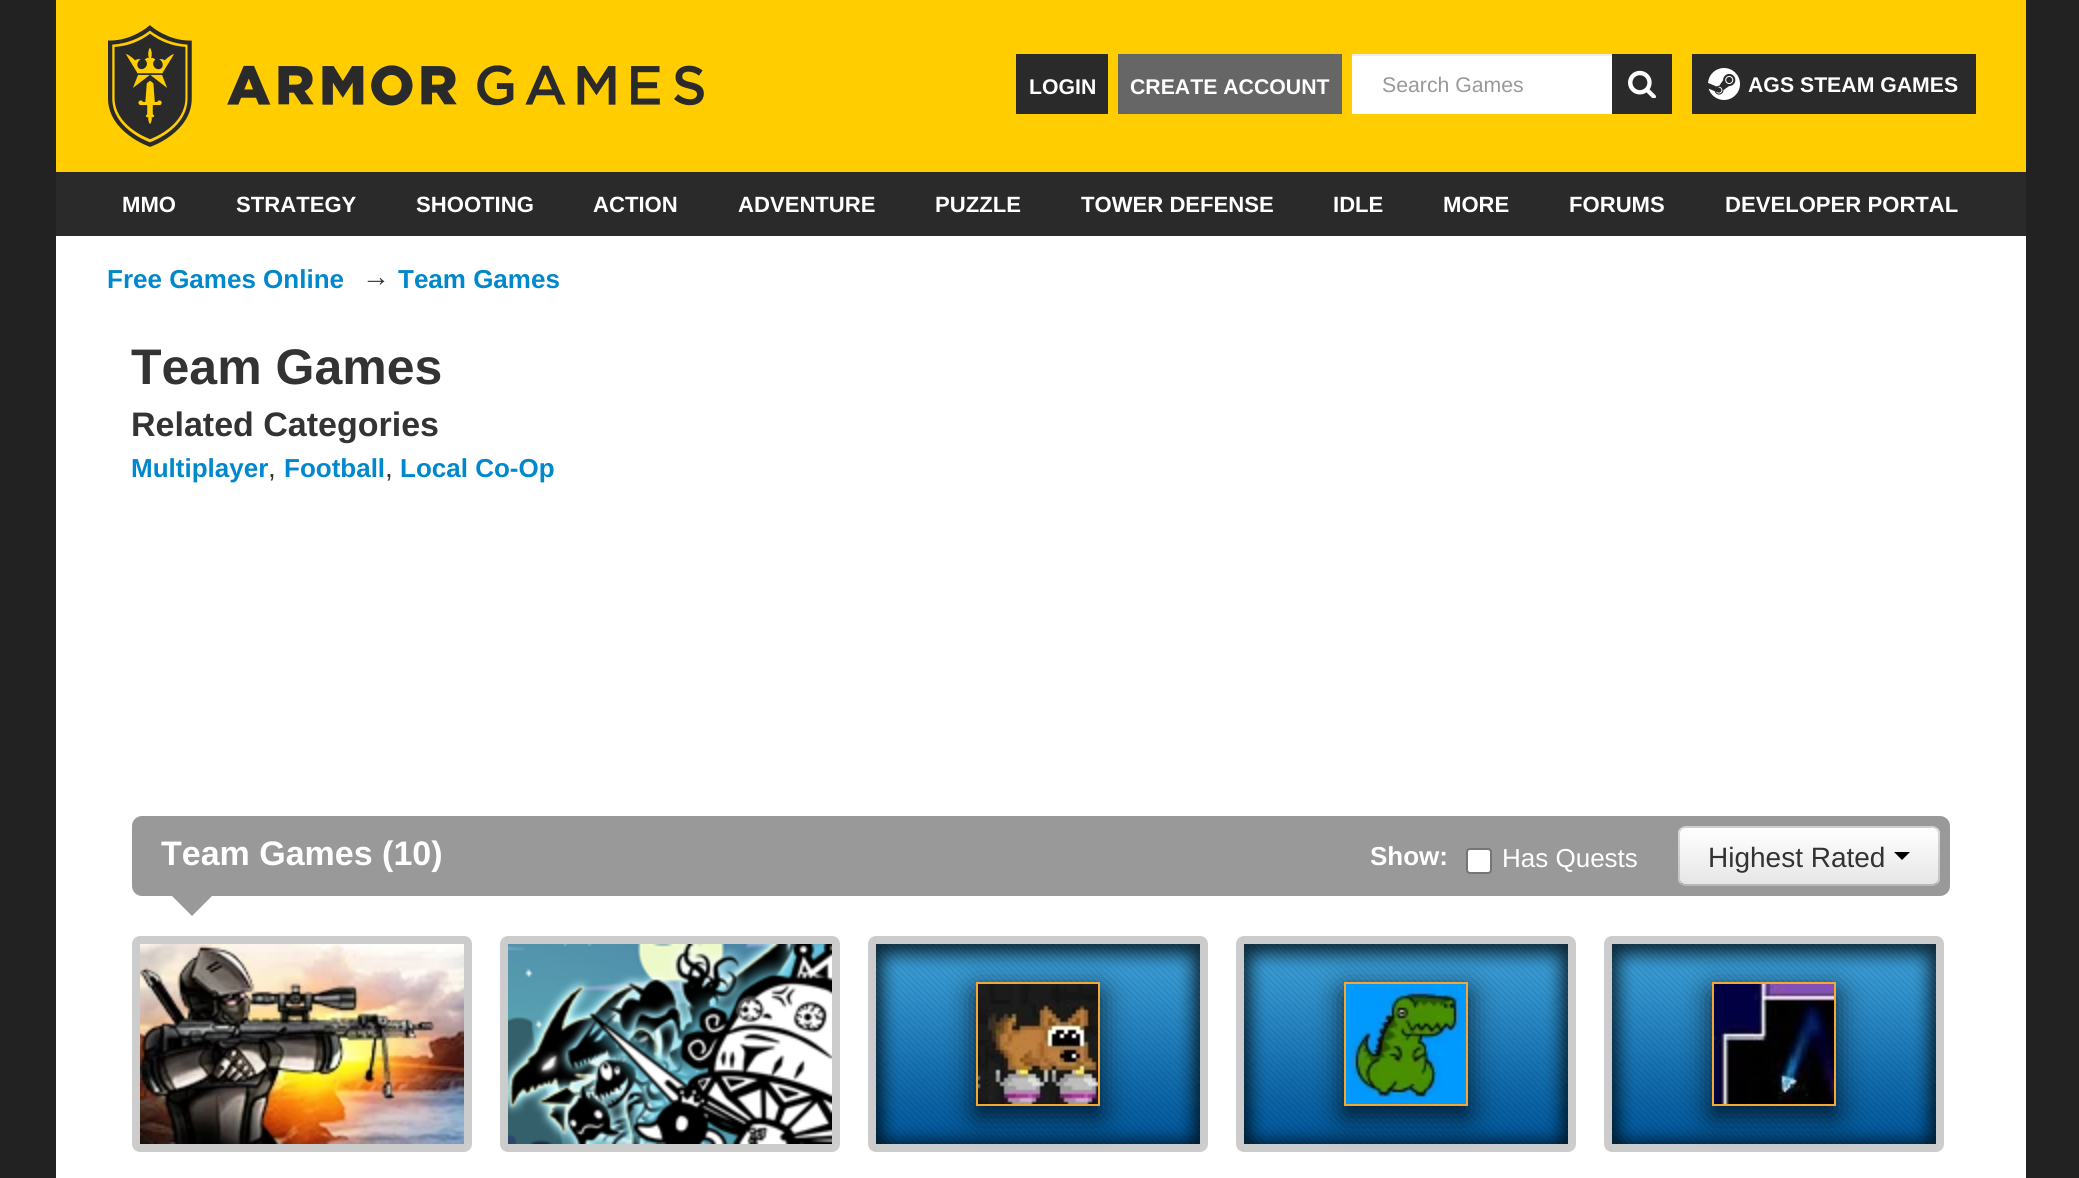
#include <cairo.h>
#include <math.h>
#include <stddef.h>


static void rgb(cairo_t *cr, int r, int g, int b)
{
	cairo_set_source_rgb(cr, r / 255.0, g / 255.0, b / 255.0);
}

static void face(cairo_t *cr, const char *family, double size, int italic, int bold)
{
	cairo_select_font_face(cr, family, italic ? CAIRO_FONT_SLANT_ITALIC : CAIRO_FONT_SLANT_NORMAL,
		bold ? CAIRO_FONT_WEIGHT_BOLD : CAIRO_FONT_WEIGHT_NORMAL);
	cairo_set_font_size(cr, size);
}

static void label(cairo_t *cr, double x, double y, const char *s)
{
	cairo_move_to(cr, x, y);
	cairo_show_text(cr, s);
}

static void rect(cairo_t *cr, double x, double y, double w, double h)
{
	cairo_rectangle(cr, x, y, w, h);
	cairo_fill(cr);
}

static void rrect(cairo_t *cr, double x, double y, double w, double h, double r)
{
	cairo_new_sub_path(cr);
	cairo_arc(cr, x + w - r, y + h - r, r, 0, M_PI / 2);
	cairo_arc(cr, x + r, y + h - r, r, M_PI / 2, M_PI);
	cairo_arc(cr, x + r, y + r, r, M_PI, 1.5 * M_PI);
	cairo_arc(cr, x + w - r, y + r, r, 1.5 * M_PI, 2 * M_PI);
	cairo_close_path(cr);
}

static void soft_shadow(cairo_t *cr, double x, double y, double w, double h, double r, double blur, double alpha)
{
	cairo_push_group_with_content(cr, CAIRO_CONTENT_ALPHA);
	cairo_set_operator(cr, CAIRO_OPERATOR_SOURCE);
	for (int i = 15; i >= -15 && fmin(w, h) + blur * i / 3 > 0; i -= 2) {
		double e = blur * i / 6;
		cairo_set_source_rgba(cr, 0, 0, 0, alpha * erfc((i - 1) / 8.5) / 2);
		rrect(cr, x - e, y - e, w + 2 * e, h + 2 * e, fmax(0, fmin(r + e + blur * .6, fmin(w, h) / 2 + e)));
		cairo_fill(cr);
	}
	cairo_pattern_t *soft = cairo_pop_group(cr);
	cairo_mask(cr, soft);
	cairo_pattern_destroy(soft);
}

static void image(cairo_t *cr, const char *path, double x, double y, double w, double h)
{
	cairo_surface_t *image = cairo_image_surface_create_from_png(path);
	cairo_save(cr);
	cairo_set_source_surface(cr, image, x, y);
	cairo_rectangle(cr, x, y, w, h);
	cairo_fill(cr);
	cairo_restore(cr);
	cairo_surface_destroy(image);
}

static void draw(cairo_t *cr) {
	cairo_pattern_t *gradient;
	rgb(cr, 34, 34, 34);
	cairo_paint(cr);
	rgb(cr, 255, 255, 255);
	rect(cr, 56, 236, 1970, 942);
	rgb(cr, 255, 205, 0);
	rect(cr, 56, 0, 1970, 172);
	image(cr, "image0.png", 108, 25, 596, 122);
	rgb(cr, 42, 42, 42);
	rect(cr, 1016, 54, 92, 60);
	face(cr, "Liberation Sans", 21.25, 0, 1);
	rgb(cr, 255, 255, 255);
	label(cr, 1029, 94, "LOGIN");
	rgb(cr, 102, 102, 102);
	rect(cr, 1118, 54, 224, 60);
	rgb(cr, 255, 255, 255);
	label(cr, 1130, 94, "CREATE ACCOUNT");
	rect(cr, 1352, 56, 260, 58);
	rgb(cr, 236, 236, 236);
	rect(cr, 1352, 54, 260, 2);
	face(cr, "Liberation Sans", 21.25, 0, 0);
	rgb(cr, 153, 153, 153);
	label(cr, 1382, 92, "Search Games");
	rgb(cr, 42, 42, 42);
	rect(cr, 1612, 54, 60, 60);
	image(cr, "image1.png", 1628, 70, 28, 28);
	rect(cr, 1692, 54, 284, 60);
	image(cr, "image2.png", 1708, 68, 32, 32);
	face(cr, "Liberation Sans", 21.25, 0, 1);
	rgb(cr, 255, 255, 255);
	label(cr, 1748, 92, "AGS STEAM GAMES");
	rgb(cr, 42, 42, 42);
	rect(cr, 56, 172, 1970, 64);
	face(cr, "Liberation Sans", 22.1, 0, 1);
	rgb(cr, 255, 255, 255);
	label(cr, 122, 212, "MMO");
	label(cr, 236, 212, "STRATEGY");
	label(cr, 416, 212, "SHOOTING");
	label(cr, 593, 212, "ACTION");
	label(cr, 738, 212, "ADVENTURE");
	label(cr, 935, 212, "PUZZLE");
	label(cr, 1081, 212, "TOWER DEFENSE");
	label(cr, 1333, 212, "IDLE");
	label(cr, 1443, 212, "MORE");
	label(cr, 1569, 212, "FORUMS");
	label(cr, 1725, 212, "DEVELOPER PORTAL");
	face(cr, "Liberation Sans", 26, 0, 1);
	rgb(cr, 0, 136, 204);
	label(cr, 107, 288, "Free Games Online");
	face(cr, "Liberation Sans", 28, 0, 1);
	rgb(cr, 48, 55, 64);
	label(cr, 362, 286, "→");
	face(cr, "Liberation Sans", 26, 0, 1);
	rgb(cr, 0, 136, 204);
	label(cr, 398, 288, "Team Games");
	face(cr, "Liberation Sans", 50, 0, 1);
	rgb(cr, 51, 51, 51);
	label(cr, 131, 384, "Team Games");
	face(cr, "Liberation Sans", 34, 0, 1);
	label(cr, 131, 436, "Related Categories");
	face(cr, "Liberation Sans", 26, 0, 1);
	rgb(cr, 0, 136, 204);
	label(cr, 131, 477, "Multiplayer");
	face(cr, "Liberation Sans", 28, 0, 0);
	rgb(cr, 51, 51, 51);
	label(cr, 268, 477, ",");
	face(cr, "Liberation Sans", 26, 0, 1);
	rgb(cr, 0, 136, 204);
	label(cr, 284, 477, "Football");
	face(cr, "Liberation Sans", 28, 0, 0);
	rgb(cr, 51, 51, 51);
	label(cr, 385, 477, ",");
	face(cr, "Liberation Sans", 26, 0, 1);
	rgb(cr, 0, 136, 204);
	label(cr, 400, 477, "Local Co-Op");
	rgb(cr, 153, 153, 153);
	rrect(cr, 132, 816, 1818, 80, 10);
	cairo_fill(cr);
	face(cr, "Liberation Sans", 34, 0, 1);
	rgb(cr, 255, 255, 255);
	label(cr, 161, 865, "Team Games (10)");
	face(cr, "Liberation Sans", 26, 0, 1);
	label(cr, 1370, 865, "Show:");
	rrect(cr, 1467, 849, 24, 24, 3);
	cairo_fill_preserve(cr);
	rgb(cr, 118, 118, 118);
	cairo_stroke(cr);
	face(cr, "Liberation Sans", 26, 0, 0);
	rgb(cr, 255, 255, 255);
	label(cr, 1502, 867, "Has Quests");
	rgb(cr, 245, 245, 245);
	rrect(cr, 1678, 826, 262, 60, 8);
	cairo_fill(cr);
	cairo_save(cr);
	rrect(cr, 1678, 826, 262, 60, 8);
	cairo_clip(cr);
	gradient = cairo_pattern_create_linear(1809, 828, 1809, 884);
	cairo_pattern_add_color_stop_rgba(gradient, 0, 1, 1, 1, 1);
	cairo_pattern_add_color_stop_rgba(gradient, 1, 0.902, 0.902, 0.902, 1);
	cairo_set_source(cr, gradient);
	cairo_pattern_destroy(gradient);
	rect(cr, 1678, 828, 262, 56);
	cairo_restore(cr);
	cairo_new_path(cr);
	cairo_move_to(cr, 1937, 883);
	cairo_curve_to(cr, 1935.5, 884.5, 1934, 885, 1932, 885);
	cairo_line_to(cr, 1686, 885);
	cairo_curve_to(cr, 1684, 885, 1682.5, 884.5, 1681, 883);
	cairo_set_source_rgba(cr, 0, 0, 0, 0.25);
	cairo_stroke(cr);
	cairo_new_path(cr);
	cairo_move_to(cr, 1681, 883);
	cairo_curve_to(cr, 1679.5, 881.5, 1679, 880, 1679, 878);
	cairo_line_to(cr, 1679, 834);
	cairo_curve_to(cr, 1679, 832, 1679.5, 830.5, 1681, 829);
	cairo_curve_to(cr, 1682.5, 827.5, 1684, 827, 1686, 827);
	cairo_line_to(cr, 1932, 827);
	cairo_curve_to(cr, 1934, 827, 1935.5, 827.5, 1937, 829);
	cairo_curve_to(cr, 1938.5, 830.5, 1939, 832, 1939, 834);
	cairo_line_to(cr, 1939, 878);
	cairo_curve_to(cr, 1939, 880, 1938.5, 881.5, 1937, 883);
	cairo_set_source_rgba(cr, 0, 0, 0, 0.15);
	cairo_stroke(cr);
	face(cr, "Liberation Sans", 28, 0, 0);
	rgb(cr, 51, 51, 51);
	label(cr, 1708, 867, "Highest Rated");
	rgb(cr, 0, 0, 0);
	cairo_new_path(cr);
	cairo_move_to(cr, 1894, 852);
	cairo_line_to(cr, 1910, 852);
	cairo_line_to(cr, 1902, 860);
	cairo_close_path(cr);
	cairo_fill(cr);
	rgb(cr, 153, 153, 153);
	cairo_new_path(cr);
	cairo_move_to(cr, 172, 896);
	cairo_line_to(cr, 212, 896);
	cairo_line_to(cr, 192, 916);
	cairo_close_path(cr);
	cairo_fill(cr);
	rrect(cr, 136, 940, 332, 208, 4);
	rgb(cr, 204, 204, 204);
	cairo_set_line_width(cr, 8);
	cairo_stroke(cr);
	image(cr, "image3.png", 140, 944, 324, 200);
	rrect(cr, 504, 940, 332, 208, 4);
	cairo_stroke(cr);
	image(cr, "image4.png", 508, 944, 324, 200);
	image(cr, "image5.png", 876, 944, 324, 200);
	rrect(cr, 872, 940, 332, 208, 4);
	cairo_stroke(cr);
	rgb(cr, 0, 0, 0);
	soft_shadow(cr, 976, 992, 124, 124, 0, 15, 0.75);
	cairo_rectangle(cr, 977, 983, 122, 122);
	rgb(cr, 243, 168, 54);
	cairo_set_line_width(cr, 2);
	cairo_stroke(cr);
	image(cr, "image6.png", 978, 984, 120, 120);
	image(cr, "image5.png", 1244, 944, 324, 200);
	rrect(cr, 1240, 940, 332, 208, 4);
	rgb(cr, 204, 204, 204);
	cairo_set_line_width(cr, 8);
	cairo_stroke(cr);
	rgb(cr, 0, 0, 0);
	soft_shadow(cr, 1344, 992, 124, 124, 0, 15, 0.75);
	cairo_rectangle(cr, 1345, 983, 122, 122);
	rgb(cr, 243, 168, 54);
	cairo_set_line_width(cr, 2);
	cairo_stroke(cr);
	image(cr, "image7.png", 1346, 984, 120, 120);
	image(cr, "image5.png", 1612, 944, 324, 200);
	rrect(cr, 1608, 940, 332, 208, 4);
	rgb(cr, 204, 204, 204);
	cairo_set_line_width(cr, 8);
	cairo_stroke(cr);
	rgb(cr, 0, 0, 0);
	soft_shadow(cr, 1712, 992, 124, 124, 0, 15, 0.75);
	cairo_rectangle(cr, 1713, 983, 122, 122);
	rgb(cr, 243, 168, 54);
	cairo_set_line_width(cr, 2);
	cairo_stroke(cr);
	image(cr, "image8.png", 1714, 984, 120, 120);
}

int main(void) {
	cairo_surface_t *surface = cairo_image_surface_create(CAIRO_FORMAT_RGB24, 2079, 1178);
	cairo_t *cr = cairo_create(surface);
	cairo_font_options_t *options = cairo_font_options_create();
	cairo_font_options_set_hint_metrics(options, CAIRO_HINT_METRICS_OFF);
	cairo_font_options_set_hint_style(options, CAIRO_HINT_STYLE_NONE);
	cairo_set_font_options(cr, options);
	cairo_set_miter_limit(cr, 4);
	draw(cr);
	cairo_surface_write_to_png(surface, "render.png");
	cairo_font_options_destroy(options);
	cairo_destroy(cr);
	cairo_surface_destroy(surface);
	return 0;
}
